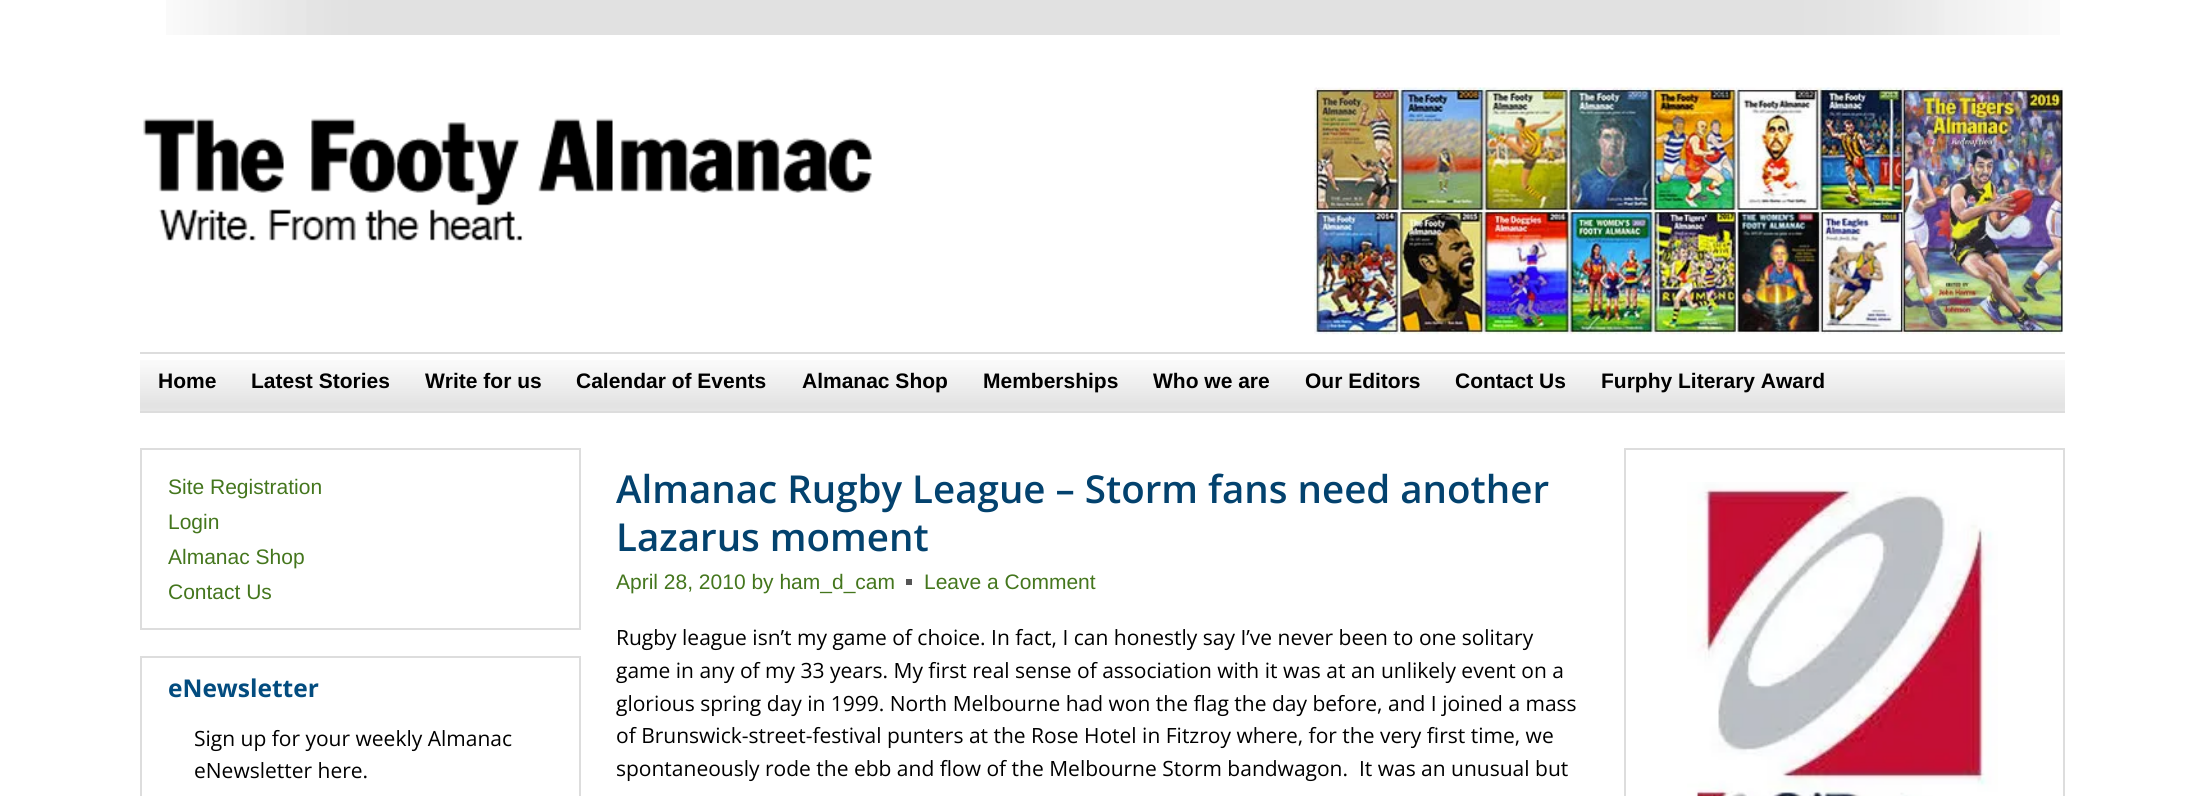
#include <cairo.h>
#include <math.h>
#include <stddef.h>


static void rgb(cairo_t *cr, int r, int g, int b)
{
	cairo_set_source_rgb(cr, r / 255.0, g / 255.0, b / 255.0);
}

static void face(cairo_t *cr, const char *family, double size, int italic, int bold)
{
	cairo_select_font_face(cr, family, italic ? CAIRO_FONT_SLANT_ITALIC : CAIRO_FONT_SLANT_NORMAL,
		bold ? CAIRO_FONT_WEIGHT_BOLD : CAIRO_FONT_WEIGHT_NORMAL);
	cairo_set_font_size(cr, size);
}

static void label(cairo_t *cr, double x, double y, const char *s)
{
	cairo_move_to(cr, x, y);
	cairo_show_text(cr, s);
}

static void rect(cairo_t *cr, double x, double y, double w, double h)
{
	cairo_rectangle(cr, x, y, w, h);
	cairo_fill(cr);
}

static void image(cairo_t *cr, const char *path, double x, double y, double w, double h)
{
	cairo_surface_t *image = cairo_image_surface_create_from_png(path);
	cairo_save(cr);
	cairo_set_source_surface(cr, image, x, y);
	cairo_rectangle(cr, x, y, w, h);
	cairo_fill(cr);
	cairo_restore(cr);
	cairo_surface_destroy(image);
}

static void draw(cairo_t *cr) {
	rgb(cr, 255, 255, 255);
	cairo_paint(cr);
	image(cr, "image0.png", 166, 0, 1894, 35);
	image(cr, "image1.png", 143, 118, 729, 123);
	image(cr, "image2.png", 1314, 87, 750, 248);
	image(cr, "image3.png", 140, 360, 1925, 51);
	rgb(cr, 221, 221, 221);
	rect(cr, 140, 352, 1925, 2);
	rect(cr, 140, 411, 1925, 2);
	face(cr, "Liberation Sans", 21, 0, 1);
	rgb(cr, 0, 0, 0);
	label(cr, 158, 388, "Home");
	label(cr, 251, 388, "Latest Stories");
	label(cr, 425, 388, "Write for us");
	label(cr, 576, 388, "Calendar of Events");
	label(cr, 802, 388, "Almanac Shop");
	label(cr, 983, 388, "Memberships");
	label(cr, 1153, 388, "Who we are");
	label(cr, 1305, 388, "Our Editors");
	label(cr, 1455, 388, "Contact Us");
	label(cr, 1601, 388, "Furphy Literary Award");
	cairo_rectangle(cr, 141, 449, 439, 180);
	rgb(cr, 221, 221, 221);
	cairo_stroke(cr);
	face(cr, "Liberation Sans", 21, 0, 0);
	rgb(cr, 68, 118, 29);
	label(cr, 168, 494, "Site Registration");
	label(cr, 168, 529, "Login");
	label(cr, 168, 564, "Almanac Shop");
	label(cr, 168, 599, "Contact Us");
	cairo_rectangle(cr, 141, 657, 439, 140);
	rgb(cr, 221, 221, 221);
	cairo_stroke(cr);
	face(cr, "Open Sans", 24.5, 0, 1);
	rgb(cr, 3, 76, 127);
	label(cr, 168, 697, "eNewsletter");
	face(cr, "Open Sans", 21, 0, 0);
	rgb(cr, 0, 0, 0);
	label(cr, 194, 746, "Sign up for your weekly Almanac");
	label(cr, 194, 778, "eNewsletter here.");
	face(cr, "Open Sans SemiBold", 38.5, 0, 0);
	rgb(cr, 3, 66, 110);
	label(cr, 616, 503, "Almanac Rugby League – Storm fans need another");
	label(cr, 616, 551, "Lazarus moment");
	face(cr, "Liberation Sans", 21, 0, 0);
	rgb(cr, 68, 118, 29);
	label(cr, 616, 589, "April 28, 2010 by ham_d_cam");
	label(cr, 924, 589, "Leave a Comment");
	rgb(cr, 85, 85, 85);
	rect(cr, 906, 579, 6, 6);
	face(cr, "Open Sans", 21, 0, 0);
	rgb(cr, 0, 0, 0);
	label(cr, 616, 645, "Rugby league isn’t my game of choice. In fact, I can honestly say I’ve never been to one solitary");
	label(cr, 616, 678, "game in any of my 33 years. My first real sense of association with it was at an unlikely event on a");
	label(cr, 616, 711, "glorious spring day in 1999. North Melbourne had won the flag the day before, and I joined a mass");
	label(cr, 616, 743, "of Brunswick-street-festival punters at the Rose Hotel in Fitzroy where, for the very first time, we");
	label(cr, 616, 776, "spontaneously rode the ebb and flow of the Melbourne Storm bandwagon.  It was an unusual but");
	cairo_rectangle(cr, 1625, 449, 439, 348);
	rgb(cr, 221, 221, 221);
	cairo_stroke(cr);
	image(cr, "image4.png", 1687, 482, 311, 314);
}

int main(void) {
	cairo_surface_t *surface = cairo_image_surface_create(CAIRO_FORMAT_RGB24, 2205, 796);
	cairo_t *cr = cairo_create(surface);
	cairo_font_options_t *options = cairo_font_options_create();
	cairo_font_options_set_hint_metrics(options, CAIRO_HINT_METRICS_OFF);
	cairo_font_options_set_hint_style(options, CAIRO_HINT_STYLE_NONE);
	cairo_set_font_options(cr, options);
	cairo_set_miter_limit(cr, 4);
	draw(cr);
	cairo_surface_write_to_png(surface, "render.png");
	cairo_font_options_destroy(options);
	cairo_destroy(cr);
	cairo_surface_destroy(surface);
	return 0;
}
